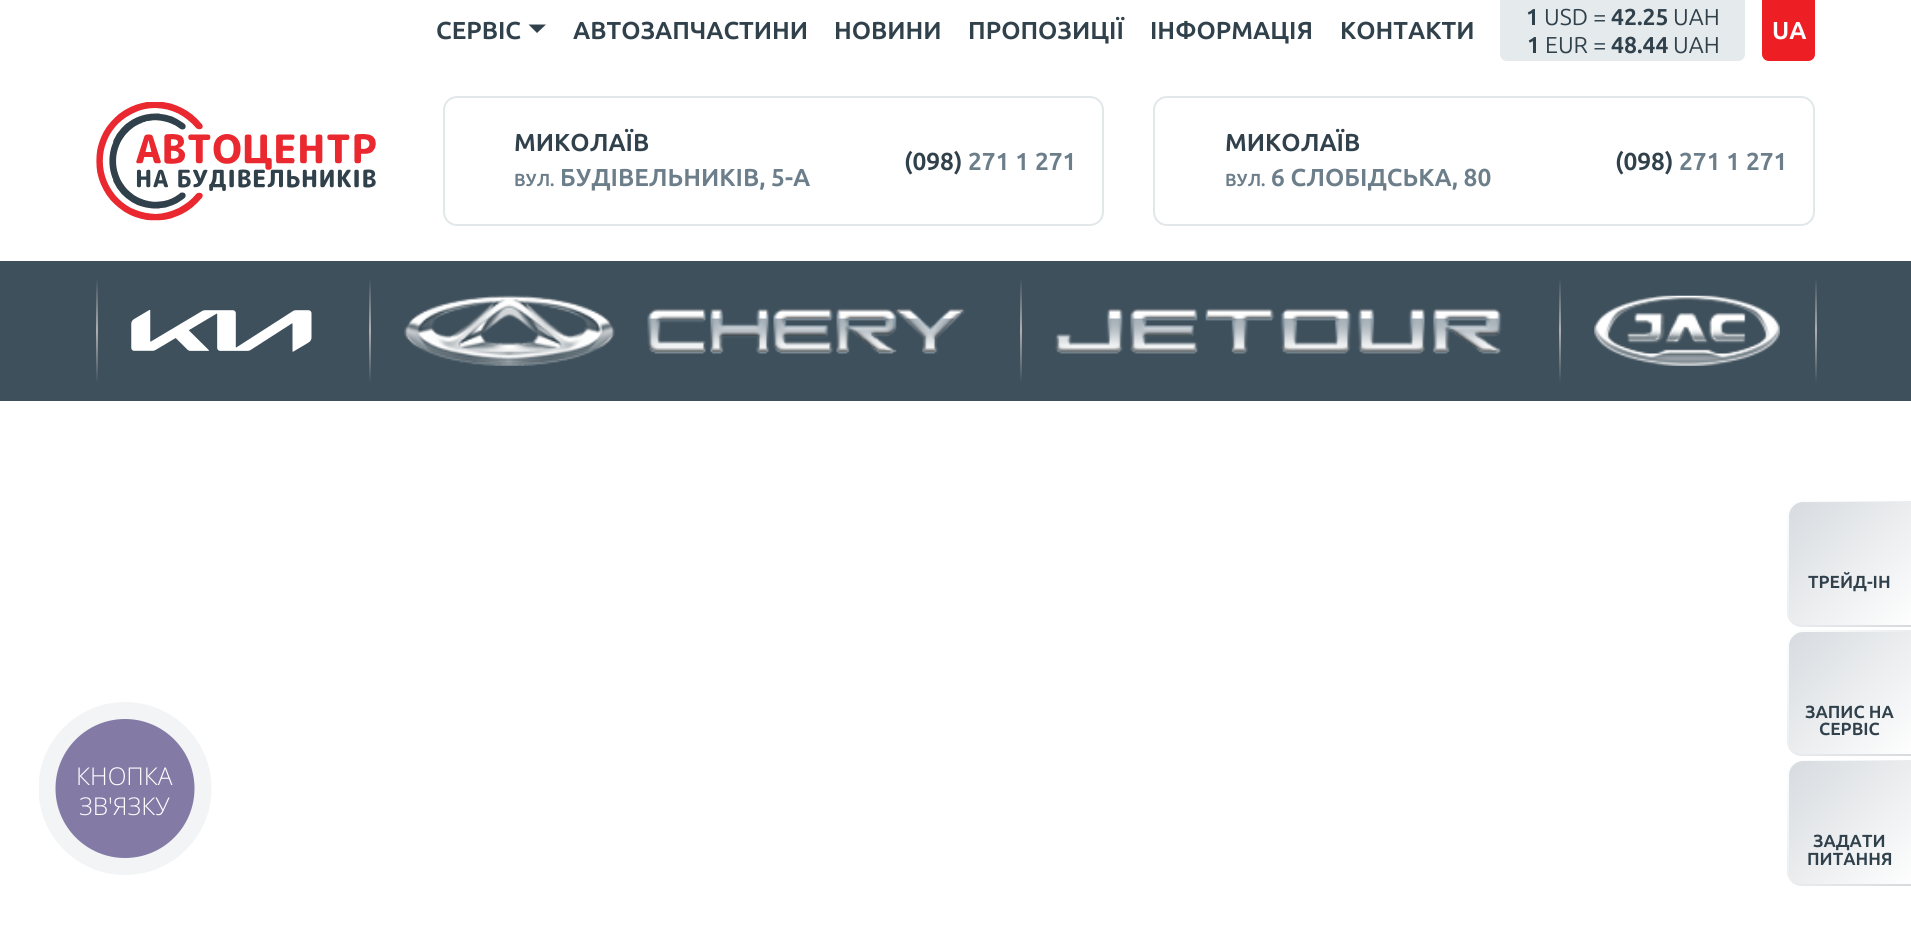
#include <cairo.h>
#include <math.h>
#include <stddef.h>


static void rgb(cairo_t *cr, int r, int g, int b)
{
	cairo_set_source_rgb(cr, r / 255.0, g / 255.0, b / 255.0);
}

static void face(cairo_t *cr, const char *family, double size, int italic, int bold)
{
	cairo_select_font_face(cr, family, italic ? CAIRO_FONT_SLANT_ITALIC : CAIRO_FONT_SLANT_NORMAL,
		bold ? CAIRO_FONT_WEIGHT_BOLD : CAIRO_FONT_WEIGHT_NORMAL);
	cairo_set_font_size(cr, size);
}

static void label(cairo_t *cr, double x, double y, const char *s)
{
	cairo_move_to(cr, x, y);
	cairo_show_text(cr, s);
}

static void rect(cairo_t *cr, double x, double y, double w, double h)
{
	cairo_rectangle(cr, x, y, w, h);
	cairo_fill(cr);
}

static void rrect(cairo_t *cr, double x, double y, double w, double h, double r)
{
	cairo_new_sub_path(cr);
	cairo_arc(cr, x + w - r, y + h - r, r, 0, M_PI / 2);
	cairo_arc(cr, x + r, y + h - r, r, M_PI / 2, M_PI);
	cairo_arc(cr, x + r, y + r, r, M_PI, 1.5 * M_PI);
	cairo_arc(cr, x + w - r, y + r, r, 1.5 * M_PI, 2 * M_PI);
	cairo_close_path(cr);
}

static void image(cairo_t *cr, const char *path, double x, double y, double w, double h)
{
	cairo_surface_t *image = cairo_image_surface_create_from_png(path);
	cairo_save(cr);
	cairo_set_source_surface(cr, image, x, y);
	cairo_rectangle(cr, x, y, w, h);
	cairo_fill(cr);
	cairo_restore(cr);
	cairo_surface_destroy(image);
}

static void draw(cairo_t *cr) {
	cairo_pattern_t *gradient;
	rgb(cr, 255, 255, 255);
	cairo_paint(cr);
	cairo_save(cr);
	cairo_rectangle(cr, 39, 702, 173, 173);
	cairo_clip(cr);
	rgb(cr, 242, 244, 245);
	cairo_arc(cr, 125, 788.5, 86.5, 0, 2 * M_PI);
	cairo_fill(cr);
	cairo_restore(cr);
	rgb(cr, 131, 123, 166);
	cairo_arc(cr, 125, 788.5, 69.5, 0, 2 * M_PI);
	cairo_fill(cr);
	face(cr, "Open Sans Light", 24.5, 0, 0);
	rgb(cr, 255, 255, 255);
	label(cr, 76, 785, "КНОПКА");
	label(cr, 79, 815, "ЗВ'ЯЗКУ");
	face(cr, "Ubuntu", 24.5, 0, 1);
	rgb(cr, 48, 65, 76);
	label(cr, 436, 39, "СЕРВІС");
	cairo_new_path(cr);
	cairo_move_to(cr, 528.5, 24.5);
	cairo_line_to(cr, 546, 24.5);
	cairo_line_to(cr, 537, 33);
	cairo_close_path(cr);
	cairo_fill(cr);
	label(cr, 573, 39, "АВТОЗАПЧАСТИНИ");
	label(cr, 834, 39, "НОВИНИ");
	label(cr, 968, 39, "ПРОПОЗИЦІЇ");
	label(cr, 1150, 39, "IНФОРМАЦІЯ");
	label(cr, 1340, 39, "КОНТАКТИ");
	rgb(cr, 229, 234, 236);
	cairo_new_path(cr);
	cairo_move_to(cr, 1500, 0);
	cairo_line_to(cr, 1745, 0);
	cairo_line_to(cr, 1745, 54);
	cairo_curve_to(cr, 1745, 58, 1742, 61, 1738, 61);
	cairo_line_to(cr, 1507, 61);
	cairo_curve_to(cr, 1503, 61, 1500, 58, 1500, 54);
	cairo_close_path(cr);
	cairo_fill(cr);
	face(cr, "Ubuntu", 23, 0, 1);
	rgb(cr, 48, 65, 76);
	label(cr, 1526, 25, "1");
	face(cr, "Ubuntu", 23, 0, 0);
	label(cr, 1544, 25, "USD =");
	face(cr, "Ubuntu", 23, 0, 1);
	label(cr, 1611, 25, "42.25");
	face(cr, "Ubuntu", 23, 0, 0);
	label(cr, 1673, 25, "UAH");
	face(cr, "Ubuntu", 23, 0, 1);
	label(cr, 1527, 53, "1");
	face(cr, "Ubuntu", 23, 0, 0);
	label(cr, 1545, 53, "EUR =");
	face(cr, "Ubuntu", 23, 0, 1);
	label(cr, 1611, 53, "48.44");
	face(cr, "Ubuntu", 23, 0, 0);
	label(cr, 1673, 53, "UAH");
	rgb(cr, 237, 31, 36);
	cairo_new_path(cr);
	cairo_move_to(cr, 1762, 0);
	cairo_line_to(cr, 1815, 0);
	cairo_line_to(cr, 1815, 54);
	cairo_curve_to(cr, 1815, 58, 1812, 61, 1808, 61);
	cairo_line_to(cr, 1769, 61);
	cairo_curve_to(cr, 1765, 61, 1762, 58, 1762, 54);
	cairo_close_path(cr);
	cairo_fill(cr);
	face(cr, "Ubuntu", 24.5, 0, 1);
	rgb(cr, 255, 255, 255);
	label(cr, 1772, 39, "UA");
	image(cr, "image0.png", 96, 102, 280, 119);
	rrect(cr, 444, 97, 659, 128, 13);
	rgb(cr, 226, 231, 234);
	cairo_stroke(cr);
	rgb(cr, 48, 65, 76);
	label(cr, 514, 151, "МИКОЛАЇВ");
	face(cr, "Ubuntu", 17.5, 0, 1);
	rgb(cr, 108, 126, 138);
	label(cr, 514, 186, "ВУЛ.");
	face(cr, "Ubuntu", 24.5, 0, 1);
	label(cr, 560, 186, "БУДІВЕЛЬНИКІВ, 5-А");
	rgb(cr, 48, 65, 76);
	label(cr, 904, 170, "(098)");
	rgb(cr, 108, 126, 138);
	label(cr, 968, 170, "271 1 271");
	rrect(cr, 1154, 97, 660, 128, 13);
	rgb(cr, 226, 231, 234);
	cairo_stroke(cr);
	rgb(cr, 48, 65, 76);
	label(cr, 1225, 151, "МИКОЛАЇВ");
	face(cr, "Ubuntu", 17.5, 0, 1);
	rgb(cr, 108, 126, 138);
	label(cr, 1225, 186, "ВУЛ.");
	face(cr, "Ubuntu", 24.5, 0, 1);
	label(cr, 1271, 186, "6 СЛОБІДСЬКА, 80");
	rgb(cr, 48, 65, 76);
	label(cr, 1615, 170, "(098)");
	rgb(cr, 108, 126, 138);
	label(cr, 1679, 170, "271 1 271");
	rgb(cr, 62, 80, 92);
	rect(cr, 0, 261, 1911, 140);
	gradient = cairo_pattern_create_linear(97, 278, 97, 383);
	cairo_pattern_add_color_stop_rgba(gradient, 0, 0.243, 0.314, 0.361, 1);
	cairo_pattern_add_color_stop_rgba(gradient, 0.5, 0.682, 0.682, 0.686, 1);
	cairo_pattern_add_color_stop_rgba(gradient, 1, 0.243, 0.314, 0.361, 1);
	cairo_set_source(cr, gradient);
	cairo_pattern_destroy(gradient);
	rect(cr, 96, 278, 2, 105);
	image(cr, "image1.png", 131, 310, 181, 42);
	gradient = cairo_pattern_create_linear(370, 278, 370, 383);
	cairo_pattern_add_color_stop_rgba(gradient, 0, 0.243, 0.314, 0.361, 1);
	cairo_pattern_add_color_stop_rgba(gradient, 0.5, 0.682, 0.682, 0.686, 1);
	cairo_pattern_add_color_stop_rgba(gradient, 1, 0.243, 0.314, 0.361, 1);
	cairo_set_source(cr, gradient);
	cairo_pattern_destroy(gradient);
	rect(cr, 369, 278, 2, 105);
	image(cr, "image2.png", 404, 295, 561, 71);
	gradient = cairo_pattern_create_linear(1021, 278, 1021, 383);
	cairo_pattern_add_color_stop_rgba(gradient, 0, 0.243, 0.314, 0.361, 1);
	cairo_pattern_add_color_stop_rgba(gradient, 0.5, 0.682, 0.682, 0.686, 1);
	cairo_pattern_add_color_stop_rgba(gradient, 1, 0.243, 0.314, 0.361, 1);
	cairo_set_source(cr, gradient);
	cairo_pattern_destroy(gradient);
	rect(cr, 1020, 278, 2, 105);
	image(cr, "image3.png", 1055, 308, 447, 46);
	gradient = cairo_pattern_create_linear(1560, 278, 1560, 383);
	cairo_pattern_add_color_stop_rgba(gradient, 0, 0.243, 0.314, 0.361, 1);
	cairo_pattern_add_color_stop_rgba(gradient, 0.5, 0.682, 0.682, 0.686, 1);
	cairo_pattern_add_color_stop_rgba(gradient, 1, 0.243, 0.314, 0.361, 1);
	cairo_set_source(cr, gradient);
	cairo_pattern_destroy(gradient);
	rect(cr, 1559, 278, 2, 105);
	image(cr, "image4.png", 1594, 295, 186, 71);
	gradient = cairo_pattern_create_linear(1816, 278, 1816, 383);
	cairo_pattern_add_color_stop_rgba(gradient, 0, 0.243, 0.314, 0.361, 1);
	cairo_pattern_add_color_stop_rgba(gradient, 0.5, 0.682, 0.682, 0.686, 1);
	cairo_pattern_add_color_stop_rgba(gradient, 1, 0.243, 0.314, 0.361, 1);
	cairo_set_source(cr, gradient);
	cairo_pattern_destroy(gradient);
	rect(cr, 1815, 278, 2, 105);
	gradient = cairo_pattern_create_linear(1786, 501, 1911, 626);
	cairo_pattern_add_color_stop_rgba(gradient, 0, 0.996, 1, 1, 1);
	cairo_pattern_add_color_stop_rgba(gradient, 1, 0.843, 0.859, 0.871, 1);
	cairo_set_source(cr, gradient);
	cairo_pattern_destroy(gradient);
	cairo_new_path(cr);
	cairo_move_to(cr, 1801, 501);
	cairo_line_to(cr, 1911, 501);
	cairo_line_to(cr, 1911, 627);
	cairo_line_to(cr, 1801, 627);
	cairo_curve_to(cr, 1793.5, 627, 1787, 620.5, 1787, 613);
	cairo_line_to(cr, 1787, 515);
	cairo_curve_to(cr, 1787, 507.5, 1793.5, 501, 1801, 501);
	cairo_close_path(cr);
	cairo_fill(cr);
	gradient = cairo_pattern_create_linear(1789, 502, 1911, 625);
	cairo_pattern_add_color_stop_rgba(gradient, 0, 0.843, 0.859, 0.875, 1);
	cairo_pattern_add_color_stop_rgba(gradient, 1, 0.996, 0.996, 0.996, 1);
	cairo_set_source(cr, gradient);
	cairo_pattern_destroy(gradient);
	cairo_new_path(cr);
	cairo_move_to(cr, 1803, 502);
	cairo_line_to(cr, 1911, 502);
	cairo_line_to(cr, 1911, 625);
	cairo_line_to(cr, 1803, 625);
	cairo_curve_to(cr, 1795.5, 625, 1789, 618.5, 1789, 611);
	cairo_line_to(cr, 1789, 516);
	cairo_curve_to(cr, 1789, 508.5, 1795.5, 502, 1803, 502);
	cairo_close_path(cr);
	cairo_fill(cr);
	face(cr, "Ubuntu", 17.5, 0, 1);
	rgb(cr, 48, 65, 76);
	label(cr, 1808, 588, "ТРЕЙД-ІН");
	gradient = cairo_pattern_create_linear(1786, 630, 1911, 756);
	cairo_pattern_add_color_stop_rgba(gradient, 0, 0.996, 1, 1, 1);
	cairo_pattern_add_color_stop_rgba(gradient, 1, 0.843, 0.859, 0.871, 1);
	cairo_set_source(cr, gradient);
	cairo_pattern_destroy(gradient);
	cairo_new_path(cr);
	cairo_move_to(cr, 1801, 630);
	cairo_line_to(cr, 1911, 630);
	cairo_line_to(cr, 1911, 756);
	cairo_line_to(cr, 1801, 756);
	cairo_curve_to(cr, 1793.5, 756, 1787, 749.5, 1787, 742);
	cairo_line_to(cr, 1787, 644);
	cairo_curve_to(cr, 1787, 636.5, 1793.5, 630, 1801, 630);
	cairo_close_path(cr);
	cairo_fill(cr);
	gradient = cairo_pattern_create_linear(1789, 632, 1911, 754);
	cairo_pattern_add_color_stop_rgba(gradient, 0, 0.843, 0.859, 0.875, 1);
	cairo_pattern_add_color_stop_rgba(gradient, 1, 0.996, 0.996, 0.996, 1);
	cairo_set_source(cr, gradient);
	cairo_pattern_destroy(gradient);
	cairo_new_path(cr);
	cairo_move_to(cr, 1803, 632);
	cairo_line_to(cr, 1911, 632);
	cairo_line_to(cr, 1911, 754);
	cairo_line_to(cr, 1803, 754);
	cairo_curve_to(cr, 1795.5, 754, 1789, 747.5, 1789, 740);
	cairo_line_to(cr, 1789, 646);
	cairo_curve_to(cr, 1789, 638.5, 1795.5, 632, 1803, 632);
	cairo_close_path(cr);
	cairo_fill(cr);
	rgb(cr, 48, 65, 76);
	label(cr, 1805, 718, "ЗАПИС НА");
	label(cr, 1819, 735, "СЕРВІС");
	gradient = cairo_pattern_create_linear(1786, 760, 1911, 885);
	cairo_pattern_add_color_stop_rgba(gradient, 0, 0.996, 1, 1, 1);
	cairo_pattern_add_color_stop_rgba(gradient, 1, 0.843, 0.859, 0.871, 1);
	cairo_set_source(cr, gradient);
	cairo_pattern_destroy(gradient);
	cairo_new_path(cr);
	cairo_move_to(cr, 1801, 760);
	cairo_line_to(cr, 1911, 760);
	cairo_line_to(cr, 1911, 886);
	cairo_line_to(cr, 1801, 886);
	cairo_curve_to(cr, 1793.5, 886, 1787, 879.5, 1787, 872);
	cairo_line_to(cr, 1787, 774);
	cairo_curve_to(cr, 1787, 766.5, 1793.5, 760, 1801, 760);
	cairo_close_path(cr);
	cairo_fill(cr);
	gradient = cairo_pattern_create_linear(1789, 761, 1911, 884);
	cairo_pattern_add_color_stop_rgba(gradient, 0, 0.843, 0.859, 0.875, 1);
	cairo_pattern_add_color_stop_rgba(gradient, 1, 0.996, 0.996, 0.996, 1);
	cairo_set_source(cr, gradient);
	cairo_pattern_destroy(gradient);
	cairo_new_path(cr);
	cairo_move_to(cr, 1803, 761);
	cairo_line_to(cr, 1911, 761);
	cairo_line_to(cr, 1911, 884);
	cairo_line_to(cr, 1803, 884);
	cairo_curve_to(cr, 1795.5, 884, 1789, 877.5, 1789, 870);
	cairo_line_to(cr, 1789, 775);
	cairo_curve_to(cr, 1789, 767.5, 1795.5, 761, 1803, 761);
	cairo_close_path(cr);
	cairo_fill(cr);
	rgb(cr, 48, 65, 76);
	label(cr, 1813, 847, "ЗАДАТИ");
	label(cr, 1807, 865, "ПИТАННЯ");
}

int main(void) {
	cairo_surface_t *surface = cairo_image_surface_create(CAIRO_FORMAT_RGB24, 1911, 936);
	cairo_t *cr = cairo_create(surface);
	cairo_font_options_t *options = cairo_font_options_create();
	cairo_font_options_set_hint_metrics(options, CAIRO_HINT_METRICS_OFF);
	cairo_font_options_set_hint_style(options, CAIRO_HINT_STYLE_NONE);
	cairo_set_font_options(cr, options);
	cairo_set_miter_limit(cr, 4);
	draw(cr);
	cairo_surface_write_to_png(surface, "render.png");
	cairo_font_options_destroy(options);
	cairo_destroy(cr);
	cairo_surface_destroy(surface);
	return 0;
}
